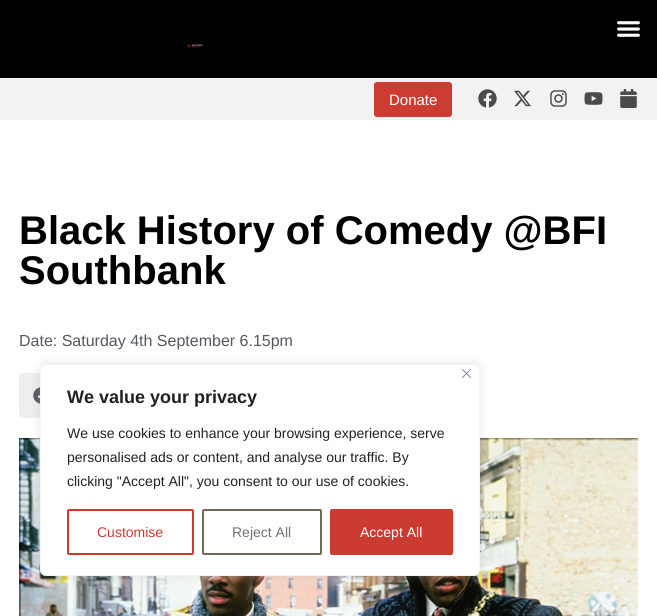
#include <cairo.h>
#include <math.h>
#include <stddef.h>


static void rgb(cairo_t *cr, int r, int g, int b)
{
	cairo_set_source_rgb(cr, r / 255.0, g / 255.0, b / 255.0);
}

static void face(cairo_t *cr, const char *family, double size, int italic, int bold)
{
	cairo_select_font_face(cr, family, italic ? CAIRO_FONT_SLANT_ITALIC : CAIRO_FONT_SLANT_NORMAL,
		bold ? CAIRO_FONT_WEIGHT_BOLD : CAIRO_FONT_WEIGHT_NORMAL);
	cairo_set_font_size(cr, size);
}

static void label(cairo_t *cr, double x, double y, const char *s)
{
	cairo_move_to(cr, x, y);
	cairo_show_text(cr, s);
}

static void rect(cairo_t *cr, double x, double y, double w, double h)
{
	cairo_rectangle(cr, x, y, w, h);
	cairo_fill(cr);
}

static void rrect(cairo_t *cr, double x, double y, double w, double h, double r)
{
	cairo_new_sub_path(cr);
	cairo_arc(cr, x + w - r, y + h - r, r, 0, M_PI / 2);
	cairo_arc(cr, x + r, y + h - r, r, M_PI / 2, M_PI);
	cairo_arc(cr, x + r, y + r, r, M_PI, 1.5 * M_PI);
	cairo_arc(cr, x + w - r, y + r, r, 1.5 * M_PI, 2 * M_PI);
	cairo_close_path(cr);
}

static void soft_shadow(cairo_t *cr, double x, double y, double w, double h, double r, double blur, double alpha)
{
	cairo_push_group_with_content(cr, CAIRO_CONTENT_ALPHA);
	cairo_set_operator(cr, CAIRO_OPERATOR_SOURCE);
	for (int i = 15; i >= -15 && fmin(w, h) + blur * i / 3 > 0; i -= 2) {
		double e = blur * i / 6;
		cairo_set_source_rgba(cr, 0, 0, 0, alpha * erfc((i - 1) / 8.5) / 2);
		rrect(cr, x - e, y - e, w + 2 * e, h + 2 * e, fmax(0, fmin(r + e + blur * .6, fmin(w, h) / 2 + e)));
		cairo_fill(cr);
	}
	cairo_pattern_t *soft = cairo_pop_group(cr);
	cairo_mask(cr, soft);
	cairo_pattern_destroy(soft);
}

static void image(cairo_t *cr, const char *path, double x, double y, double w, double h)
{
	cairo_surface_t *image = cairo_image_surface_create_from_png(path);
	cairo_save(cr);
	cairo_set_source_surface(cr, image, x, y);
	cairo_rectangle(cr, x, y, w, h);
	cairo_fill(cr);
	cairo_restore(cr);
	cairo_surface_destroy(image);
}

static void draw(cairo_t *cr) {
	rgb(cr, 255, 255, 255);
	cairo_paint(cr);
	rgb(cr, 0, 0, 0);
	rect(cr, 0, 0, 657, 78);
	image(cr, "image0.png", 617, 21, 23, 16);
	image(cr, "image1.png", 187, 44, 16, 4);
	rgb(cr, 242, 242, 242);
	rect(cr, 0, 78, 657, 42);
	rgb(cr, 204, 60, 50);
	rrect(cr, 374, 82, 78, 35, 3);
	cairo_fill(cr);
	face(cr, "Liberation Sans", 15, 0, 0);
	rgb(cr, 255, 255, 255);
	label(cr, 389, 105, "Donate");
	image(cr, "image2.png", 478, 89, 19, 19);
	image(cr, "image3.png", 514, 90, 17, 17);
	image(cr, "image4.png", 550, 90, 17, 17);
	image(cr, "image5.png", 584, 92, 19, 13);
	image(cr, "image6.png", 620, 89, 17, 19);
	face(cr, "Liberation Sans", 40, 0, 1);
	rgb(cr, 0, 0, 0);
	label(cr, 19, 244, "Black History of Comedy @BFI");
	label(cr, 19, 284, "Southbank");
	face(cr, "Liberation Sans", 16, 0, 0);
	rgb(cr, 84, 89, 95);
	label(cr, 19, 346, "Date: Saturday 4th September 6.15pm");
	rgb(cr, 238, 238, 239);
	rrect(cr, 19, 373, 45, 45, 5);
	cairo_fill(cr);
	image(cr, "image7.png", 33, 387, 7, 17);
	image(cr, "image8.png", 19, 438, 619, 178);
	rgb(cr, 172, 171, 171);
	soft_shadow(cr, 40, 363, 440, 212, 6, 5, 0.3);
	rgb(cr, 255, 255, 255);
	rrect(cr, 40.5, 364.5, 439, 211, 5.5);
	cairo_fill_preserve(cr);
	rgb(cr, 244, 244, 244);
	cairo_set_line_width(cr, 1);
	cairo_stroke(cr);
	image(cr, "image9.png", 462, 369, 9, 9);
	face(cr, "Liberation Sans", 18, 0, 1);
	rgb(cr, 33, 33, 33);
	label(cr, 67, 403, "We value your privacy");
	face(cr, "Liberation Sans", 14, 0, 0);
	label(cr, 67, 438, "We use cookies to enhance your browsing experience, serve");
	label(cr, 67, 462, "personalised ads or content, and analyse our traffic. By");
	label(cr, 67, 486, "clicking \"Accept All\", you consent to our use of cookies.");
	rrect(cr, 68, 510, 125, 44, 1);
	rgb(cr, 204, 59, 50);
	cairo_set_line_width(cr, 2);
	cairo_stroke(cr);
	label(cr, 97, 537, "Customise");
	rrect(cr, 203, 510, 118, 44, 1);
	rgb(cr, 114, 104, 94);
	cairo_stroke(cr);
	rgb(cr, 114, 114, 114);
	label(cr, 232, 537, "Reject All");
	rgb(cr, 204, 59, 50);
	rrect(cr, 331, 510, 121, 44, 1);
	cairo_fill_preserve(cr);
	cairo_stroke(cr);
	rgb(cr, 255, 255, 255);
	label(cr, 360, 537, "Accept All");
}

int main(void) {
	cairo_surface_t *surface = cairo_image_surface_create(CAIRO_FORMAT_RGB24, 657, 616);
	cairo_t *cr = cairo_create(surface);
	cairo_font_options_t *options = cairo_font_options_create();
	cairo_font_options_set_hint_metrics(options, CAIRO_HINT_METRICS_OFF);
	cairo_font_options_set_hint_style(options, CAIRO_HINT_STYLE_NONE);
	cairo_set_font_options(cr, options);
	cairo_set_miter_limit(cr, 4);
	draw(cr);
	cairo_surface_write_to_png(surface, "render.png");
	cairo_font_options_destroy(options);
	cairo_destroy(cr);
	cairo_surface_destroy(surface);
	return 0;
}
